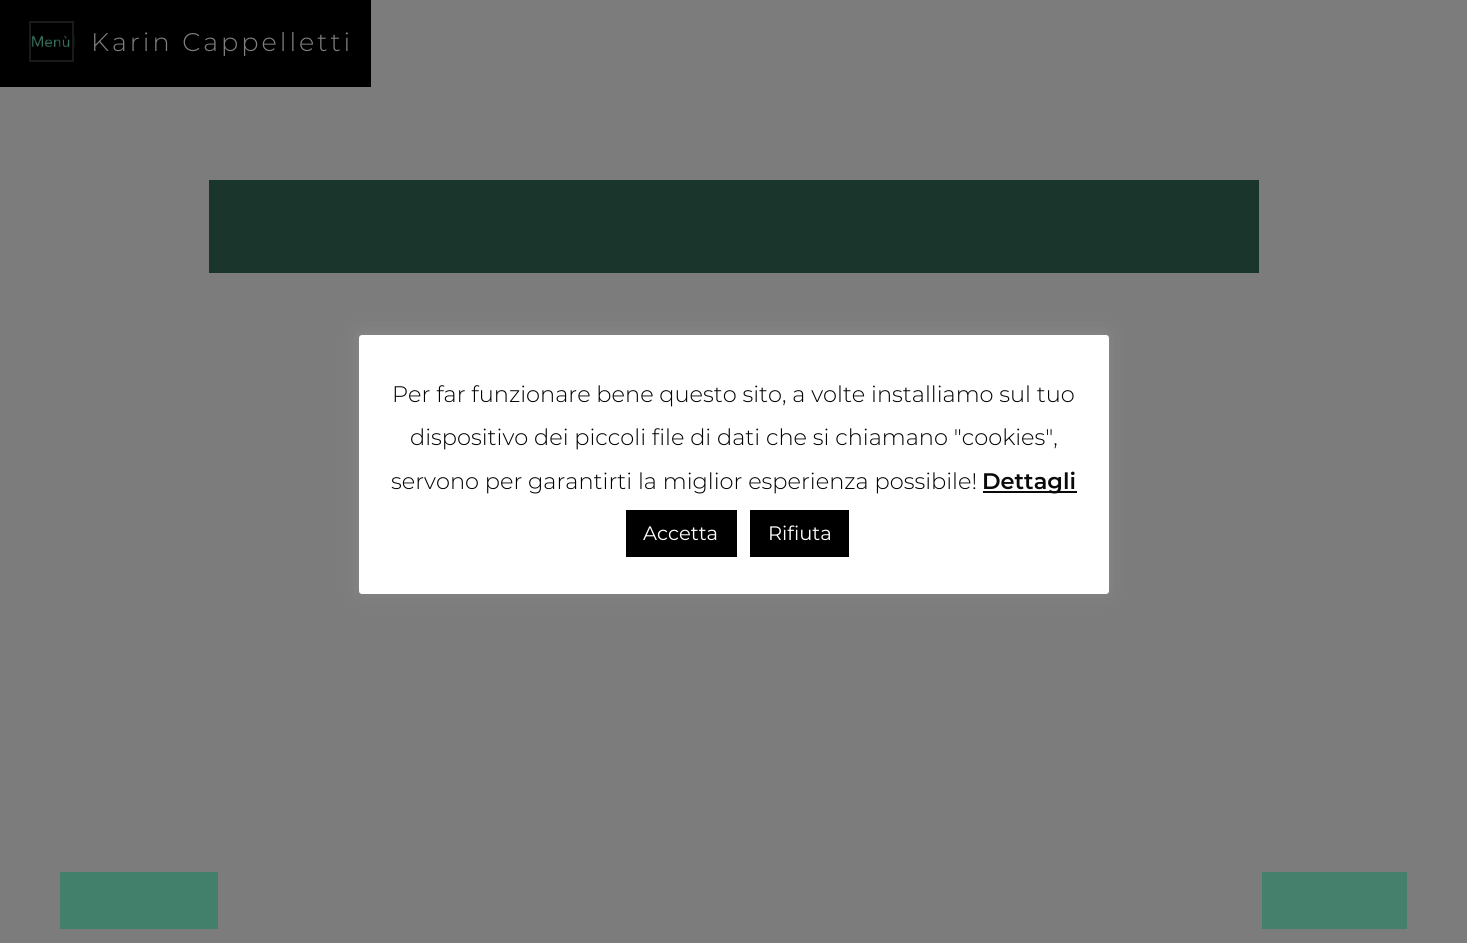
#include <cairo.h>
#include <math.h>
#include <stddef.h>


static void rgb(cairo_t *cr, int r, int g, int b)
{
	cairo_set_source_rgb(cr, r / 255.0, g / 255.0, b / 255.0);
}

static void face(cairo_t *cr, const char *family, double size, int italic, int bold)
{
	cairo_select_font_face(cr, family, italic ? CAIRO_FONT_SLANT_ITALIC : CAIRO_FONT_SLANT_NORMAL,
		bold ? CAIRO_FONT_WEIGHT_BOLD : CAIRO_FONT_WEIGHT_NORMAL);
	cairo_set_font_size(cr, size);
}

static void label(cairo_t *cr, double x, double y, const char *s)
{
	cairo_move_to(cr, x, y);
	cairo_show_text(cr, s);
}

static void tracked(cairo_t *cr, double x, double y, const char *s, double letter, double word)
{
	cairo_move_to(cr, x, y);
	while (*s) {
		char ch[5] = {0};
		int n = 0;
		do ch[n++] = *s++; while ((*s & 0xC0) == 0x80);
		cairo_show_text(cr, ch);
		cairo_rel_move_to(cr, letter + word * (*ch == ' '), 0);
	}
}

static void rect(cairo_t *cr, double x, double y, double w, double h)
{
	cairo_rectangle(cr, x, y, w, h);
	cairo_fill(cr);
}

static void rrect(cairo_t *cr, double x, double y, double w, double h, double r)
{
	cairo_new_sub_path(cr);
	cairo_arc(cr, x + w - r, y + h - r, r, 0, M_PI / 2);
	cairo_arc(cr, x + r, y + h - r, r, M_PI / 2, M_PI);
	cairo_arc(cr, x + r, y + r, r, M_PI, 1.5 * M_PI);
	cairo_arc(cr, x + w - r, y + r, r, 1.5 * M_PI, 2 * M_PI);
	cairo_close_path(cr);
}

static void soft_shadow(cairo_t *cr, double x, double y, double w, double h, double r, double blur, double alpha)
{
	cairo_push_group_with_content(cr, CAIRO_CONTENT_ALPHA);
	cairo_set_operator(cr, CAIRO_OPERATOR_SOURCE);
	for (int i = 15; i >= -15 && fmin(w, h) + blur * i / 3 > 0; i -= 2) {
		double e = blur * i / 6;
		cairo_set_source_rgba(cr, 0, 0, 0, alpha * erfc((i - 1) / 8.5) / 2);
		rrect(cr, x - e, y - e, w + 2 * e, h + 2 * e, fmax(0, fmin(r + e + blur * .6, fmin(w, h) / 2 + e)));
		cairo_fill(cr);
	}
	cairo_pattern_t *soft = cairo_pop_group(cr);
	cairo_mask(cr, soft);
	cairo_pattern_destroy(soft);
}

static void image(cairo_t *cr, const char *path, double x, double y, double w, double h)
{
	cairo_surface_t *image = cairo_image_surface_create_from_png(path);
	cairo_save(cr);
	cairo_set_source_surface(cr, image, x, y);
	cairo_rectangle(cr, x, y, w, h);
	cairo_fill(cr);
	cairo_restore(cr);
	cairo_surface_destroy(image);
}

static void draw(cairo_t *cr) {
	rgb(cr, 124, 124, 125);
	cairo_paint(cr);
	rgb(cr, 0, 0, 0);
	rect(cr, 0, 0, 371, 87);
	image(cr, "image0.png", 31, 35, 44, 12);
	cairo_rectangle(cr, 30, 22, 43, 39);
	rgb(cr, 26, 26, 26);
	cairo_stroke(cr);
	face(cr, "Montserrat Light", 25.5, 0, 0);
	rgb(cr, 128, 128, 128);
	tracked(cr, 91, 51, "Karin Cappelletti", 3, 0);
	rgb(cr, 26, 53, 44);
	rect(cr, 209, 180, 1050, 93);
	rgb(cr, 172, 171, 171);
	soft_shadow(cr, 359, 333, 750, 260, 3, 7.5, 0.3);
	rgb(cr, 255, 255, 255);
	rrect(cr, 359, 335, 750, 259, 3);
	cairo_fill(cr);
	face(cr, "Montserrat Light", 22.5, 0, 0);
	rgb(cr, 0, 0, 0);
	label(cr, 392, 402, "Per far funzionare bene questo sito, a volte installiamo sul tuo");
	label(cr, 410, 445, "dispositivo dei piccoli file di dati che si chiamano \"cookies\",");
	label(cr, 391, 489, "servono per garantirti la miglior esperienza possibile!");
	rgb(cr, 10, 10, 10);
	rect(cr, 983, 491, 94, 2);
	face(cr, "Montserrat SemiBold", 22.5, 0, 0);
	label(cr, 982, 489, "Dettagli");
	rgb(cr, 0, 0, 0);
	rect(cr, 626, 510, 111, 47);
	face(cr, "Montserrat", 19.5, 0, 0);
	rgb(cr, 255, 255, 255);
	label(cr, 643, 540, "Accetta");
	rgb(cr, 0, 0, 0);
	rect(cr, 750, 510, 99, 47);
	rgb(cr, 255, 255, 255);
	label(cr, 768, 540, "Rifiuta");
	rgb(cr, 66, 128, 107);
	rect(cr, 60, 872, 158, 57);
	rgb(cr, 68, 128, 108);
	rect(cr, 1262, 872, 145, 57);
}

int main(void) {
	cairo_surface_t *surface = cairo_image_surface_create(CAIRO_FORMAT_RGB24, 1467, 943);
	cairo_t *cr = cairo_create(surface);
	cairo_font_options_t *options = cairo_font_options_create();
	cairo_font_options_set_hint_metrics(options, CAIRO_HINT_METRICS_OFF);
	cairo_font_options_set_hint_style(options, CAIRO_HINT_STYLE_NONE);
	cairo_set_font_options(cr, options);
	cairo_set_miter_limit(cr, 4);
	draw(cr);
	cairo_surface_write_to_png(surface, "render.png");
	cairo_font_options_destroy(options);
	cairo_destroy(cr);
	cairo_surface_destroy(surface);
	return 0;
}
